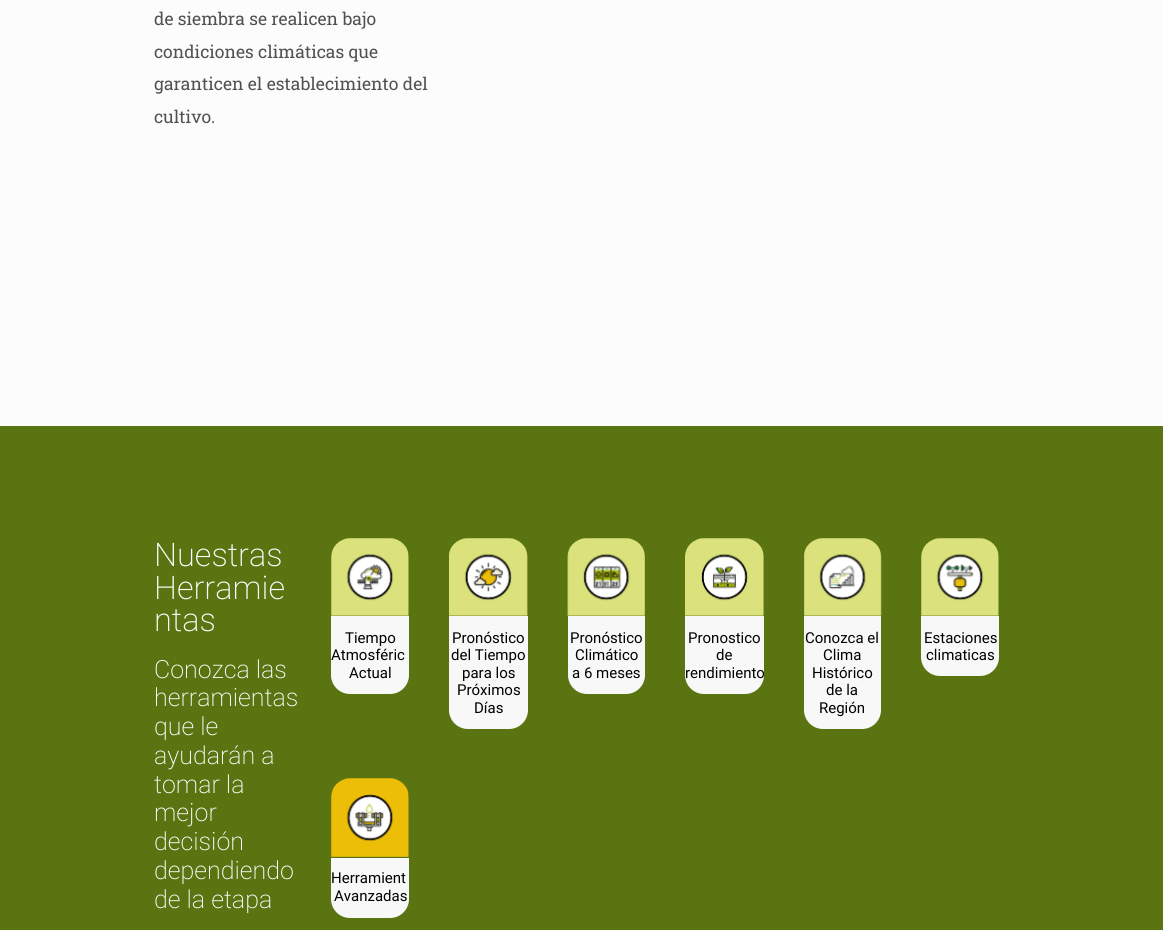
#include <cairo.h>
#include <math.h>
#include <stddef.h>


static void rgb(cairo_t *cr, int r, int g, int b)
{
	cairo_set_source_rgb(cr, r / 255.0, g / 255.0, b / 255.0);
}

static void face(cairo_t *cr, const char *family, double size, int italic, int bold)
{
	cairo_select_font_face(cr, family, italic ? CAIRO_FONT_SLANT_ITALIC : CAIRO_FONT_SLANT_NORMAL,
		bold ? CAIRO_FONT_WEIGHT_BOLD : CAIRO_FONT_WEIGHT_NORMAL);
	cairo_set_font_size(cr, size);
}

static void label(cairo_t *cr, double x, double y, const char *s)
{
	cairo_move_to(cr, x, y);
	cairo_show_text(cr, s);
}

static void rect(cairo_t *cr, double x, double y, double w, double h)
{
	cairo_rectangle(cr, x, y, w, h);
	cairo_fill(cr);
}

static void rrect(cairo_t *cr, double x, double y, double w, double h, double r)
{
	cairo_new_sub_path(cr);
	cairo_arc(cr, x + w - r, y + h - r, r, 0, M_PI / 2);
	cairo_arc(cr, x + r, y + h - r, r, M_PI / 2, M_PI);
	cairo_arc(cr, x + r, y + r, r, M_PI, 1.5 * M_PI);
	cairo_arc(cr, x + w - r, y + r, r, 1.5 * M_PI, 2 * M_PI);
	cairo_close_path(cr);
}

static void image(cairo_t *cr, const char *path, double x, double y, double w, double h)
{
	cairo_surface_t *image = cairo_image_surface_create_from_png(path);
	cairo_save(cr);
	cairo_set_source_surface(cr, image, x, y);
	cairo_rectangle(cr, x, y, w, h);
	cairo_fill(cr);
	cairo_restore(cr);
	cairo_surface_destroy(image);
}

static void draw(cairo_t *cr) {
	rgb(cr, 252, 252, 252);
	cairo_paint(cr);
	face(cr, "Roboto Slab", 17.5, 0, 0);
	rgb(cr, 81, 81, 81);
	label(cr, 154, 25, "de siembra se realicen bajo");
	label(cr, 154, 58, "condiciones climáticas que");
	label(cr, 154, 90, "garanticen el establecimiento del");
	label(cr, 154, 123, "cultivo.");
	rgb(cr, 90, 116, 17);
	rect(cr, 0, 426, 1163, 504);
	face(cr, "Roboto ExtraLight", 32.5, 0, 0);
	rgb(cr, 255, 255, 255);
	label(cr, 154, 566, "Nuestras");
	label(cr, 154, 599, "Herramie");
	label(cr, 154, 631, "ntas");
	face(cr, "Roboto ExtraLight", 25, 0, 0);
	label(cr, 154, 678, "Conozca las");
	label(cr, 154, 706, "herramientas");
	label(cr, 154, 735, "que le");
	label(cr, 154, 764, "ayudarán a");
	label(cr, 154, 793, "tomar la");
	label(cr, 154, 821, "mejor");
	label(cr, 154, 850, "decisión");
	label(cr, 154, 879, "dependiendo");
	label(cr, 154, 908, "de la etapa");
	image(cr, "image0.png", 331, 538, 78, 78);
	rgb(cr, 248, 248, 248);
	cairo_new_path(cr);
	cairo_move_to(cr, 331, 616);
	cairo_line_to(cr, 409, 616);
	cairo_line_to(cr, 409, 675);
	cairo_curve_to(cr, 409, 685.5, 400.5, 694, 390, 694);
	cairo_line_to(cr, 350, 694);
	cairo_curve_to(cr, 339.5, 694, 331, 685.5, 331, 675);
	cairo_close_path(cr);
	cairo_fill(cr);
	face(cr, "Roboto", 15, 0, 0);
	rgb(cr, 0, 0, 0);
	label(cr, 345, 643, "Tiempo");
	label(cr, 331, 660, "Atmosféric");
	label(cr, 349, 678, "Actual");
	image(cr, "image1.png", 449, 538, 79, 78);
	rgb(cr, 248, 248, 248);
	cairo_new_path(cr);
	cairo_move_to(cr, 449, 616);
	cairo_line_to(cr, 528, 616);
	cairo_line_to(cr, 528, 710);
	cairo_curve_to(cr, 528, 720.5, 519.5, 729, 509, 729);
	cairo_line_to(cr, 468, 729);
	cairo_curve_to(cr, 457.5, 729, 449, 720.5, 449, 710);
	cairo_close_path(cr);
	cairo_fill(cr);
	rgb(cr, 0, 0, 0);
	label(cr, 452, 643, "Pronóstico");
	label(cr, 451, 660, "del Tiempo");
	label(cr, 462, 678, "para los");
	label(cr, 457, 695, "Próximos");
	label(cr, 474, 713, "Días");
	image(cr, "image2.png", 567, 538, 78, 78);
	rgb(cr, 248, 248, 248);
	cairo_new_path(cr);
	cairo_move_to(cr, 568, 616);
	cairo_line_to(cr, 645, 616);
	cairo_line_to(cr, 645, 675);
	cairo_curve_to(cr, 645, 685.5, 636.5, 694, 626, 694);
	cairo_line_to(cr, 587, 694);
	cairo_curve_to(cr, 576.5, 694, 568, 685.5, 568, 675);
	cairo_close_path(cr);
	cairo_fill(cr);
	rgb(cr, 0, 0, 0);
	label(cr, 570, 643, "Pronóstico");
	label(cr, 575, 660, "Climático");
	label(cr, 572, 678, "a 6 meses");
	image(cr, "image3.png", 685, 538, 79, 78);
	rgb(cr, 248, 248, 248);
	cairo_new_path(cr);
	cairo_move_to(cr, 685, 616);
	cairo_line_to(cr, 764, 616);
	cairo_line_to(cr, 764, 675);
	cairo_curve_to(cr, 764, 685.5, 755.5, 694, 745, 694);
	cairo_line_to(cr, 704, 694);
	cairo_curve_to(cr, 693.5, 694, 685, 685.5, 685, 675);
	cairo_close_path(cr);
	cairo_fill(cr);
	rgb(cr, 0, 0, 0);
	label(cr, 688, 643, "Pronostico");
	label(cr, 716, 660, "de");
	cairo_save(cr);
	rrect(cr, 685, 539, 79, 155, 19);
	cairo_clip(cr);
	label(cr, 685, 678, "rendimiento");
	cairo_restore(cr);
	image(cr, "image4.png", 804, 538, 78, 78);
	rgb(cr, 248, 248, 248);
	cairo_new_path(cr);
	cairo_move_to(cr, 804, 616);
	cairo_line_to(cr, 881, 616);
	cairo_line_to(cr, 881, 710);
	cairo_curve_to(cr, 881, 720.5, 872.5, 729, 862, 729);
	cairo_line_to(cr, 823, 729);
	cairo_curve_to(cr, 812.5, 729, 804, 720.5, 804, 710);
	cairo_close_path(cr);
	cairo_fill(cr);
	rgb(cr, 0, 0, 0);
	label(cr, 805, 643, "Conozca el");
	label(cr, 823, 660, "Clima");
	label(cr, 812, 678, "Histórico");
	label(cr, 826, 695, "de la");
	label(cr, 819, 713, "Región");
	image(cr, "image5.png", 921, 538, 78, 78);
	rgb(cr, 248, 248, 248);
	cairo_new_path(cr);
	cairo_move_to(cr, 921, 616);
	cairo_line_to(cr, 999, 616);
	cairo_line_to(cr, 999, 657);
	cairo_curve_to(cr, 999, 667.5, 990.5, 676, 980, 676);
	cairo_line_to(cr, 940, 676);
	cairo_curve_to(cr, 929.5, 676, 921, 667.5, 921, 657);
	cairo_close_path(cr);
	cairo_fill(cr);
	rgb(cr, 0, 0, 0);
	label(cr, 924, 643, "Estaciones");
	label(cr, 926, 660, "climaticas");
	image(cr, "image6.png", 331, 778, 78, 79);
	rgb(cr, 248, 248, 248);
	cairo_new_path(cr);
	cairo_move_to(cr, 331, 858);
	cairo_line_to(cr, 409, 858);
	cairo_line_to(cr, 409, 899);
	cairo_curve_to(cr, 409, 909.5, 400.5, 918, 390, 918);
	cairo_line_to(cr, 350, 918);
	cairo_curve_to(cr, 339.5, 918, 331, 909.5, 331, 899);
	cairo_close_path(cr);
	cairo_fill(cr);
	rgb(cr, 0, 0, 0);
	label(cr, 331, 883, "Herramient");
	label(cr, 334, 901, "Avanzadas");
}

int main(void) {
	cairo_surface_t *surface = cairo_image_surface_create(CAIRO_FORMAT_RGB24, 1163, 930);
	cairo_t *cr = cairo_create(surface);
	cairo_font_options_t *options = cairo_font_options_create();
	cairo_font_options_set_hint_metrics(options, CAIRO_HINT_METRICS_OFF);
	cairo_font_options_set_hint_style(options, CAIRO_HINT_STYLE_NONE);
	cairo_set_font_options(cr, options);
	cairo_set_miter_limit(cr, 4);
	draw(cr);
	cairo_surface_write_to_png(surface, "render.png");
	cairo_font_options_destroy(options);
	cairo_destroy(cr);
	cairo_surface_destroy(surface);
	return 0;
}
